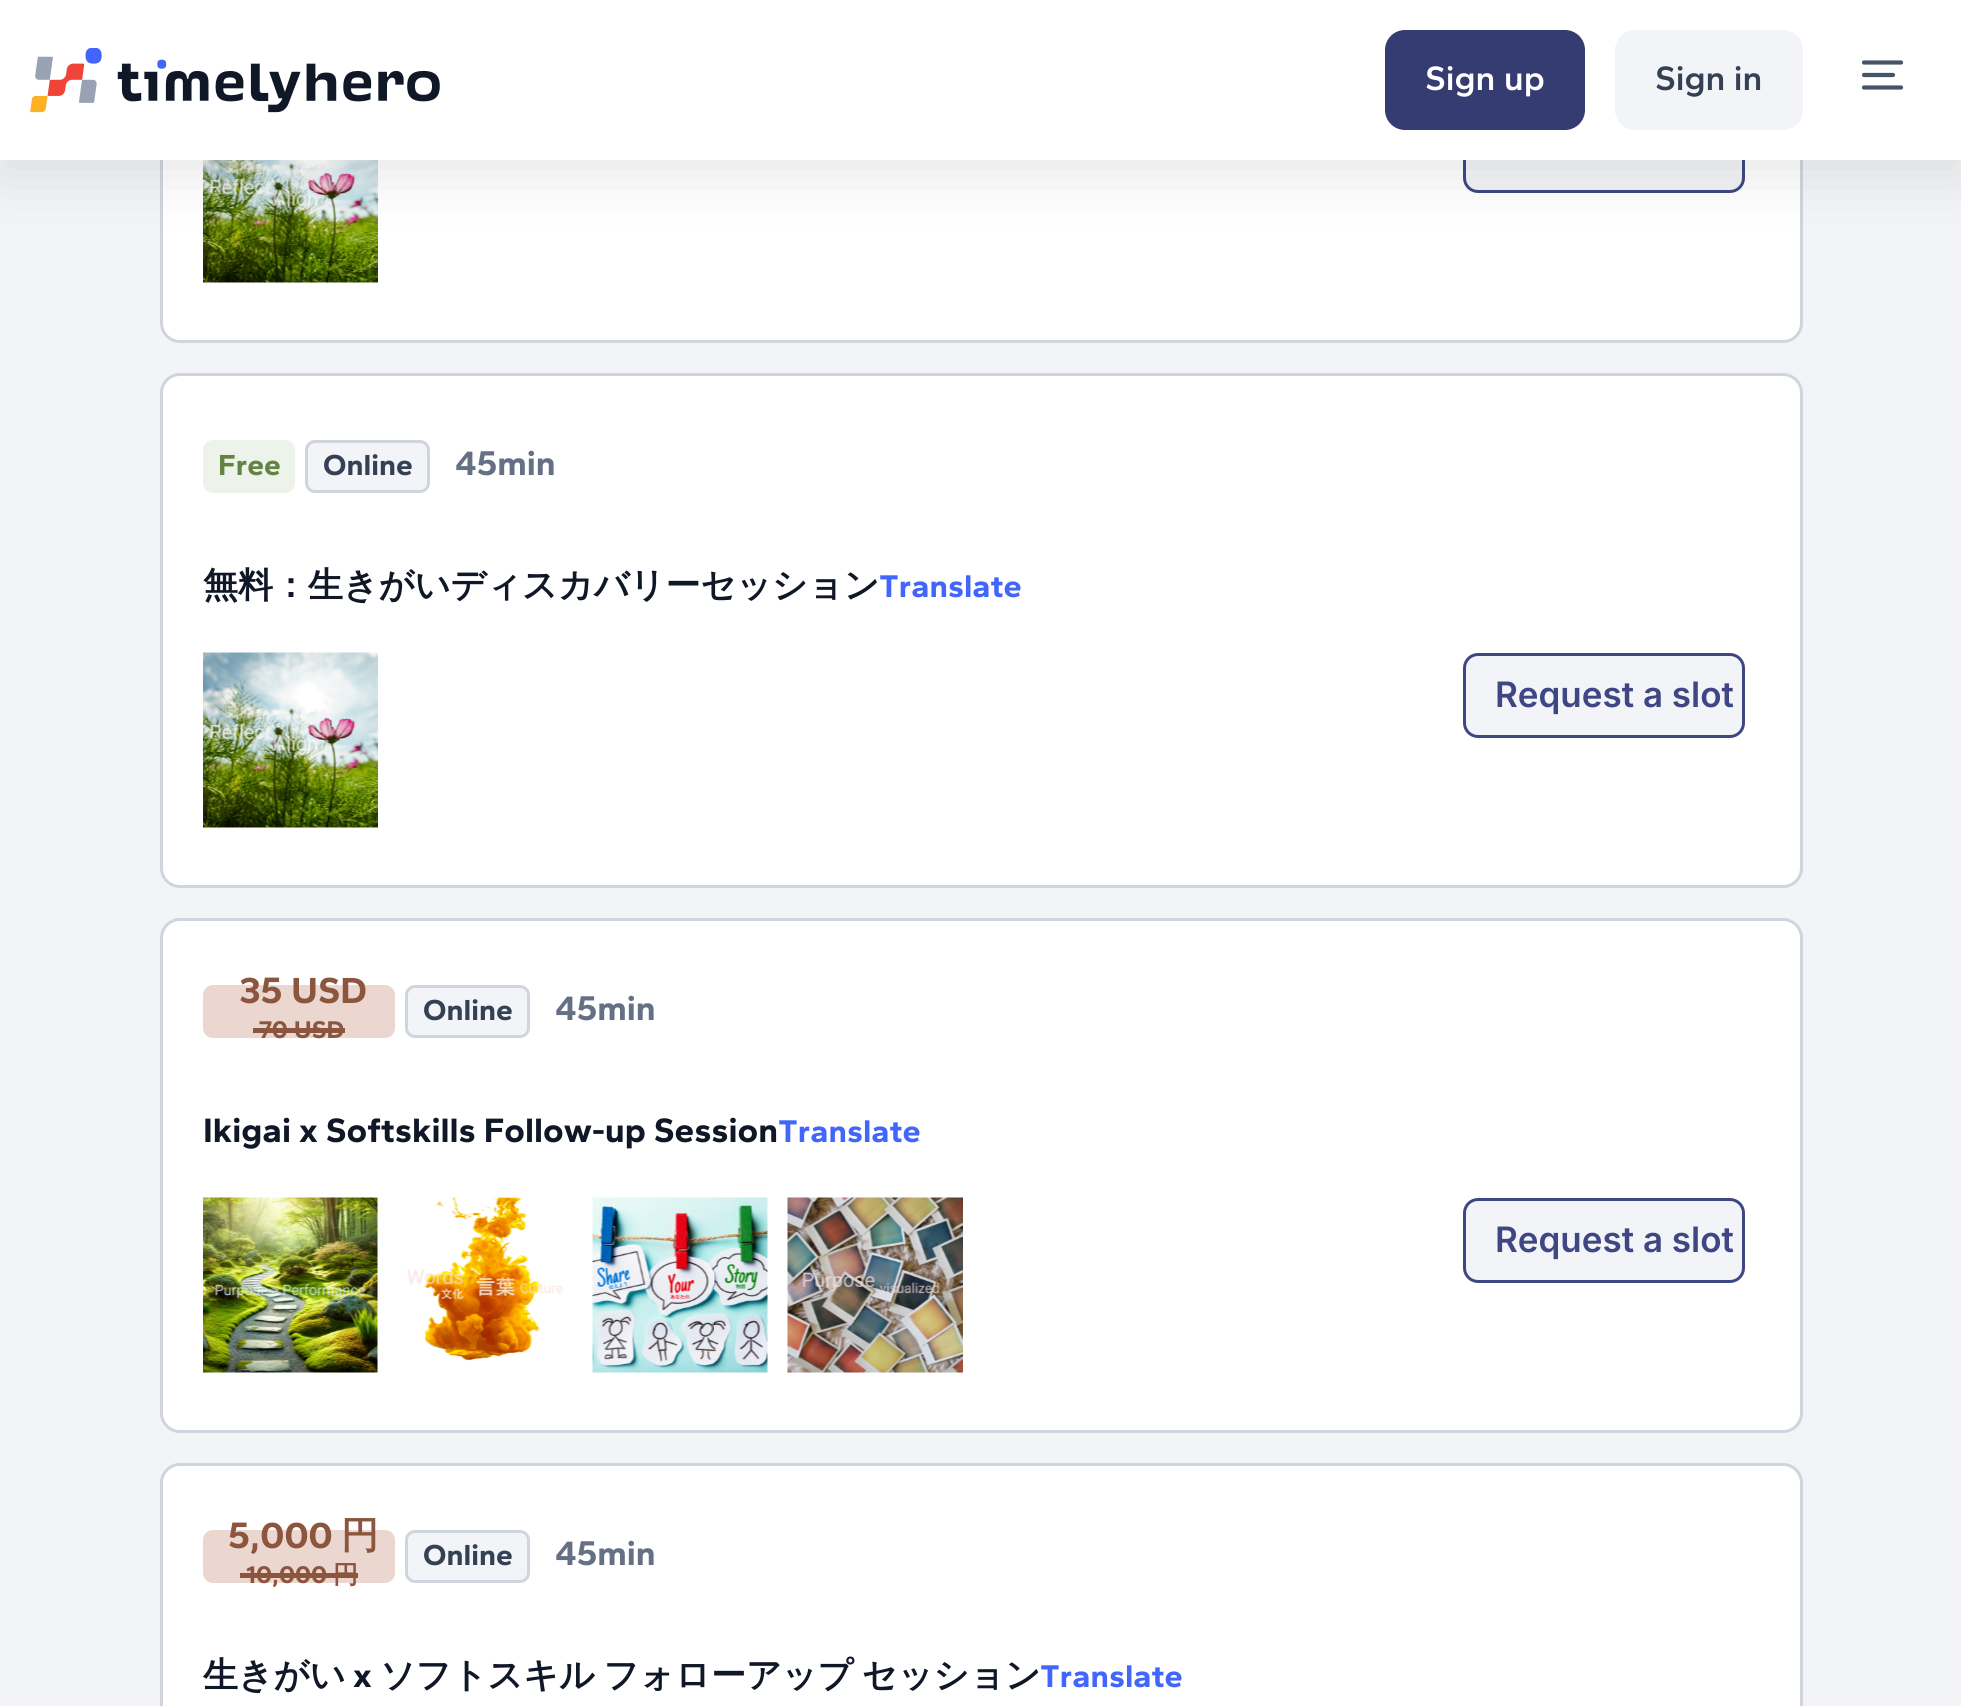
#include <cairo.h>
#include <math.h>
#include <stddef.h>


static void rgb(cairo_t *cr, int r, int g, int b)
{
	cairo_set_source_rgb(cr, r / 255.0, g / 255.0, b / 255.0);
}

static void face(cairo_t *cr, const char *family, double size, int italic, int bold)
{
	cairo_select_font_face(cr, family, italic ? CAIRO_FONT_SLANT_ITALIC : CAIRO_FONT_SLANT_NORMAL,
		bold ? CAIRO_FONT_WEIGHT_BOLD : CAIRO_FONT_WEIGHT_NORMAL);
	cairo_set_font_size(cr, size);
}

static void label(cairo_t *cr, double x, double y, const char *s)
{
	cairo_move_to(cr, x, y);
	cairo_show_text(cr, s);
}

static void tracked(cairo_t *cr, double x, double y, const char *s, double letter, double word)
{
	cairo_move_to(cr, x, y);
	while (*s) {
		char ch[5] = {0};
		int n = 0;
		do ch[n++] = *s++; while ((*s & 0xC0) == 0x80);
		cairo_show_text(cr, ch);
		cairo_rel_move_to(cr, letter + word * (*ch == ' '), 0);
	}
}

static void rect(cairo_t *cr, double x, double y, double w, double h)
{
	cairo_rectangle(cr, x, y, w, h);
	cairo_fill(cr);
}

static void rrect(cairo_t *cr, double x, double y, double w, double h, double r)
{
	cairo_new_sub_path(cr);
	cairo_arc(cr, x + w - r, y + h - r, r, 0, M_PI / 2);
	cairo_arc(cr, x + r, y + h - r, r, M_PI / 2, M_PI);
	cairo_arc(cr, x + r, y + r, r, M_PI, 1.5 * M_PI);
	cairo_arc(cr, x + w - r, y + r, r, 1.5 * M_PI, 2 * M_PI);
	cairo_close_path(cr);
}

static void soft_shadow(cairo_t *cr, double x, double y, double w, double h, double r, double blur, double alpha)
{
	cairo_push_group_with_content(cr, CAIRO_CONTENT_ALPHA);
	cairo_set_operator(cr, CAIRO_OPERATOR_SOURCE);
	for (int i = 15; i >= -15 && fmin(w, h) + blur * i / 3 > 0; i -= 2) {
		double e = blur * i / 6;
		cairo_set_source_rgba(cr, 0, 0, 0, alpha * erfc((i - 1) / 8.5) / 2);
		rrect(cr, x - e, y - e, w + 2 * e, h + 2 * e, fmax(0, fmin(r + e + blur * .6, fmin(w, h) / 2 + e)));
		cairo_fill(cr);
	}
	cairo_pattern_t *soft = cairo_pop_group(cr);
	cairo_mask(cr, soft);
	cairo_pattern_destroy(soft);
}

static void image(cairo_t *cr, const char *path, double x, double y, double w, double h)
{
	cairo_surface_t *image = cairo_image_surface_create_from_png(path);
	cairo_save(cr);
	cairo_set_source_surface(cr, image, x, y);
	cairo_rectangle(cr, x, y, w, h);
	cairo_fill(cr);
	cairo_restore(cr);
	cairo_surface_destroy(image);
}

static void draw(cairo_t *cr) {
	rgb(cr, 242, 244, 247);
	cairo_paint(cr);
	rgb(cr, 255, 255, 255);
	rrect(cr, 161.5, -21.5, 1640, 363, 18.5);
	cairo_fill_preserve(cr);
	rgb(cr, 208, 213, 221);
	cairo_set_line_width(cr, 3);
	cairo_stroke(cr);
	rgb(cr, 242, 244, 247);
	rrect(cr, 1464.5, 109.5, 279, 82, 13.5);
	cairo_fill_preserve(cr);
	rgb(cr, 62, 71, 132);
	cairo_stroke(cr);
	image(cr, "image1.png", 203, 160, 175, 123);
	rgb(cr, 0, 0, 0);
	soft_shadow(cr, 0, 15, 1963, 160, 0, 30, 0.1);
	rgb(cr, 255, 255, 255);
	rect(cr, 0, 0, 1961, 160);
	image(cr, "image0.png", 30, 48, 410, 65);
	rgb(cr, 52, 60, 113);
	rrect(cr, 1385, 30, 200, 100, 20);
	cairo_fill(cr);
	face(cr, "Gantari SemiBold", 35, 0, 0);
	rgb(cr, 255, 255, 255);
	label(cr, 1425, 90, "Sign up");
	rgb(cr, 242, 244, 247);
	rrect(cr, 1615, 30, 188, 100, 20);
	cairo_fill(cr);
	rgb(cr, 52, 64, 84);
	label(cr, 1655, 90, "Sign in");
	cairo_new_path(cr);
	cairo_move_to(cr, 1864, 75);
	cairo_line_to(cr, 1893, 75);
	cairo_move_to(cr, 1864, 62.5);
	cairo_line_to(cr, 1901, 62.5);
	cairo_move_to(cr, 1864, 87.5);
	cairo_line_to(cr, 1901, 87.5);
	rgb(cr, 71, 84, 103);
	cairo_set_line_width(cr, 4.2);
	cairo_set_line_cap(cr, CAIRO_LINE_CAP_ROUND);
	cairo_set_line_join(cr, CAIRO_LINE_JOIN_ROUND);
	cairo_stroke(cr);
	rgb(cr, 255, 255, 255);
	rrect(cr, 161.5, 374.5, 1640, 512, 18.5);
	cairo_fill_preserve(cr);
	rgb(cr, 208, 213, 221);
	cairo_set_line_width(cr, 3);
	cairo_set_line_cap(cr, CAIRO_LINE_CAP_BUTT);
	cairo_set_line_join(cr, CAIRO_LINE_JOIN_MITER);
	cairo_stroke(cr);
	rgb(cr, 237, 243, 235);
	rrect(cr, 203, 440, 92, 53, 10);
	cairo_fill(cr);
	face(cr, "Gantari", 30, 0, 1);
	rgb(cr, 98, 131, 66);
	label(cr, 218, 475, "Free");
	rgb(cr, 242, 244, 247);
	rrect(cr, 306.5, 441.5, 122, 50, 8.5);
	cairo_fill_preserve(cr);
	rgb(cr, 208, 213, 221);
	cairo_stroke(cr);
	rgb(cr, 52, 64, 84);
	label(cr, 323, 475, "Online");
	face(cr, "Gantari", 35, 0, 1);
	rgb(cr, 102, 112, 133);
	label(cr, 455, 475, "45min");
	face(cr, "WenQuanYi Zen Hei", 35, 0, 1);
	rgb(cr, 16, 24, 40);
	label(cr, 203, 597, "無料：生きがいディスカバリーセッション");
	face(cr, "Gantari", 32.5, 0, 1);
	rgb(cr, 66, 102, 252);
	label(cr, 879, 597, "Translate");
	image(cr, "image2.png", 203, 652, 175, 176);
	rgb(cr, 242, 244, 247);
	rrect(cr, 1464.5, 654.5, 279, 82, 13.5);
	cairo_fill_preserve(cr);
	rgb(cr, 62, 71, 132);
	cairo_stroke(cr);
	face(cr, "Inter SemiBold", 35, 0, 0);
	label(cr, 1495, 707, "Request a slot");
	rgb(cr, 255, 255, 255);
	rrect(cr, 161.5, 919.5, 1640, 512, 18.5);
	cairo_fill_preserve(cr);
	rgb(cr, 208, 213, 221);
	cairo_stroke(cr);
	rgb(cr, 235, 215, 207);
	rrect(cr, 203, 985, 192, 53, 10);
	cairo_fill(cr);
	face(cr, "Gantari", 37.5, 0, 1);
	rgb(cr, 140, 86, 62);
	label(cr, 239, 1003, "35 USD");
	face(cr, "Gantari", 25, 0, 1);
	label(cr, 259, 1038, "70 USD");
	rect(cr, 253, 1028, 92, 5);
	rgb(cr, 242, 244, 247);
	rrect(cr, 406.5, 986.5, 122, 50, 8.5);
	cairo_fill_preserve(cr);
	rgb(cr, 208, 213, 221);
	cairo_stroke(cr);
	face(cr, "Gantari", 30, 0, 1);
	rgb(cr, 52, 64, 84);
	label(cr, 423, 1020, "Online");
	face(cr, "Gantari", 35, 0, 1);
	rgb(cr, 102, 112, 133);
	label(cr, 555, 1020, "45min");
	rgb(cr, 16, 24, 40);
	label(cr, 203, 1142, "Ikigai x Softskills Follow-up Session");
	face(cr, "Gantari", 32.5, 0, 1);
	rgb(cr, 66, 102, 252);
	label(cr, 778, 1142, "Translate");
	image(cr, "image3.png", 203, 1197, 175, 176);
	image(cr, "image4.png", 407, 1197, 156, 164);
	image(cr, "image5.png", 592, 1197, 176, 176);
	image(cr, "image6.png", 787, 1197, 176, 176);
	rgb(cr, 242, 244, 247);
	rrect(cr, 1464.5, 1199.5, 279, 82, 13.5);
	cairo_fill_preserve(cr);
	rgb(cr, 62, 71, 132);
	cairo_stroke(cr);
	face(cr, "Inter SemiBold", 35, 0, 0);
	label(cr, 1495, 1252, "Request a slot");
	rgb(cr, 255, 255, 255);
	rrect(cr, 161.5, 1464.5, 1640, 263, 18.5);
	cairo_fill_preserve(cr);
	rgb(cr, 208, 213, 221);
	cairo_stroke(cr);
	rgb(cr, 235, 215, 207);
	rrect(cr, 203, 1530, 192, 53, 10);
	cairo_fill(cr);
	face(cr, "Gantari", 37.5, 0, 1);
	rgb(cr, 140, 86, 62);
	label(cr, 228, 1548, "5,000");
	face(cr, "WenQuanYi Zen Hei", 37.5, 0, 1);
	label(cr, 341, 1548, "円");
	face(cr, "Gantari", 25, 0, 1);
	label(cr, 246, 1583, "10,000");
	face(cr, "WenQuanYi Zen Hei", 25, 0, 1);
	label(cr, 333, 1583, "円");
	rect(cr, 240, 1573, 118, 5);
	rgb(cr, 242, 244, 247);
	rrect(cr, 406.5, 1531.5, 122, 50, 8.5);
	cairo_fill_preserve(cr);
	rgb(cr, 208, 213, 221);
	cairo_stroke(cr);
	face(cr, "Gantari", 30, 0, 1);
	rgb(cr, 52, 64, 84);
	label(cr, 423, 1565, "Online");
	face(cr, "Gantari", 35, 0, 1);
	rgb(cr, 102, 112, 133);
	label(cr, 555, 1565, "45min");
	face(cr, "WenQuanYi Zen Hei", 35, 0, 1);
	rgb(cr, 16, 24, 40);
	label(cr, 203, 1687, "生きがい");
	face(cr, "Gantari", 35, 0, 1);
	label(cr, 353, 1687, "x");
	face(cr, "WenQuanYi Zen Hei", 35, 0, 1);
	tracked(cr, 380, 1687, "ソフトスキル フォローアップ セッション", 0, -2);
	face(cr, "Gantari", 32.5, 0, 1);
	rgb(cr, 66, 102, 252);
	label(cr, 1040, 1687, "Translate");
}

int main(void) {
	cairo_surface_t *surface = cairo_image_surface_create(CAIRO_FORMAT_RGB24, 1961, 1706);
	cairo_t *cr = cairo_create(surface);
	cairo_font_options_t *options = cairo_font_options_create();
	cairo_font_options_set_hint_metrics(options, CAIRO_HINT_METRICS_OFF);
	cairo_font_options_set_hint_style(options, CAIRO_HINT_STYLE_NONE);
	cairo_set_font_options(cr, options);
	cairo_set_miter_limit(cr, 4);
	draw(cr);
	cairo_surface_write_to_png(surface, "render.png");
	cairo_font_options_destroy(options);
	cairo_destroy(cr);
	cairo_surface_destroy(surface);
	return 0;
}
